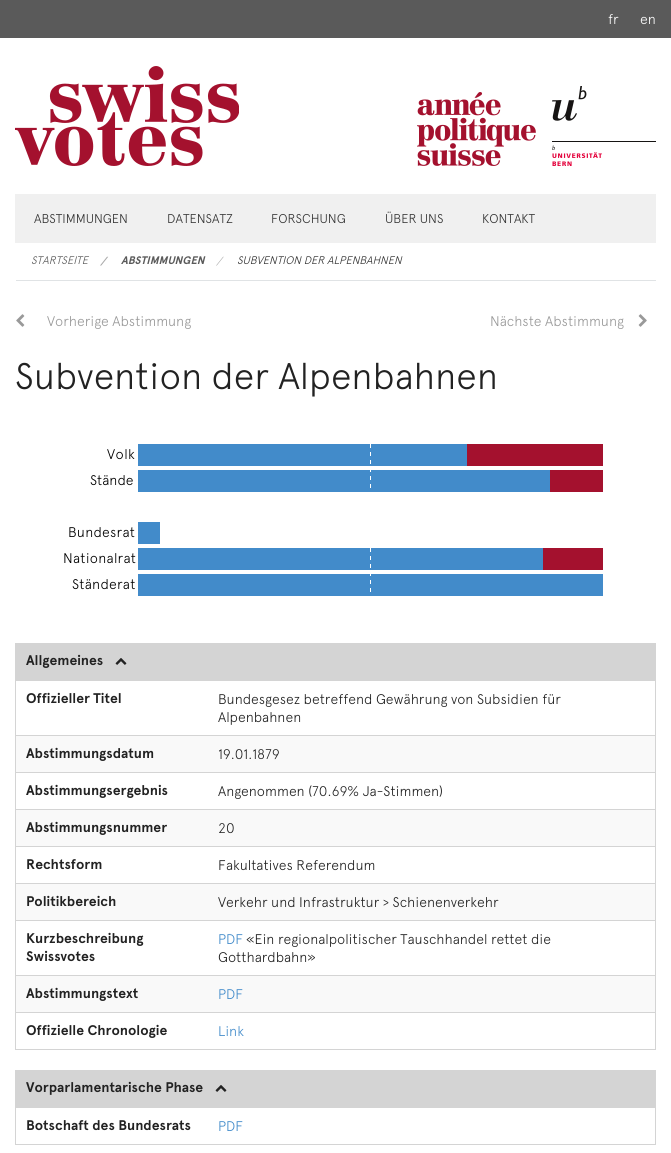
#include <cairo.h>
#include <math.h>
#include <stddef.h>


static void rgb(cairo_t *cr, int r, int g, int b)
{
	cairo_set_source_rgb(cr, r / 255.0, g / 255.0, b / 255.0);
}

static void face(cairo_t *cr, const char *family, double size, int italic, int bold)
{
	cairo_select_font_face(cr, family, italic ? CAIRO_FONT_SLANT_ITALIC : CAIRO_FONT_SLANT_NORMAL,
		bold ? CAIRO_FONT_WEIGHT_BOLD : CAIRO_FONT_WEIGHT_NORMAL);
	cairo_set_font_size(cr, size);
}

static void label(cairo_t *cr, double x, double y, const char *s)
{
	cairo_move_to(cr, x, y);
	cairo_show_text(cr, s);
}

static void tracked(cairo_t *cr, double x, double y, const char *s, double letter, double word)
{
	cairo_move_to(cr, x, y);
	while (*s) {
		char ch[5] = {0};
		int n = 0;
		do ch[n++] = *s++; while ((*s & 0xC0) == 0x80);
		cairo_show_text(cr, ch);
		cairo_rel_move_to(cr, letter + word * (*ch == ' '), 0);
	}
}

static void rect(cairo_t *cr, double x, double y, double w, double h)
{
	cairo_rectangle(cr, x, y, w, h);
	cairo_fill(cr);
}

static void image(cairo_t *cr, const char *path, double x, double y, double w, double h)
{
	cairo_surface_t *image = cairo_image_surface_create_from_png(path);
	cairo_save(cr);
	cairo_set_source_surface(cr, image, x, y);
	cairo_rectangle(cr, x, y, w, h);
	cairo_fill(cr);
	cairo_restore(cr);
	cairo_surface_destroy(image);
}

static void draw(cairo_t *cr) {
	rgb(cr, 255, 255, 255);
	cairo_paint(cr);
	rgb(cr, 90, 90, 90);
	rect(cr, 0, 0, 671, 38);
	face(cr, "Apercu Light", 14, 0, 0);
	rgb(cr, 255, 255, 255);
	label(cr, 608, 24, "fr");
	label(cr, 640, 24, "en");
	image(cr, "image0.png", 15, 66, 224, 100);
	image(cr, "image1.png", 417, 92, 119, 74);
	image(cr, "image2.png", 552, 86, 104, 80);
	rgb(cr, 240, 240, 240);
	rect(cr, 15, 194, 641, 49);
	face(cr, "Apercu Light", 12.75, 0, 0);
	rgb(cr, 51, 51, 51);
	label(cr, 34, 223, "ABSTIMMUNGEN");
	label(cr, 167, 223, "DATENSATZ");
	label(cr, 271, 223, "FORSCHUNG");
	label(cr, 385, 223, "ÜBER UNS");
	label(cr, 482, 223, "KONTAKT");
	rgb(cr, 224, 227, 229);
	rect(cr, 16, 280, 640, 1);
	face(cr, "Apercu Light", 11, 1, 0);
	rgb(cr, 90, 90, 90);
	label(cr, 31, 264, "STARTSEITE");
	face(cr, "Apercu", 11, 1, 1);
	rgb(cr, 170, 170, 170);
	label(cr, 100, 265, "/");
	rgb(cr, 90, 90, 90);
	label(cr, 121, 264, "ABSTIMMUNGEN");
	face(cr, "Apercu Light", 11, 1, 0);
	rgb(cr, 170, 170, 170);
	label(cr, 216, 265, "/");
	rgb(cr, 51, 51, 51);
	label(cr, 237, 264, "SUBVENTION DER ALPENBAHNEN");
	image(cr, "image3.png", 16, 314, 9, 13);
	face(cr, "Apercu Light", 14, 0, 0);
	rgb(cr, 153, 153, 153);
	label(cr, 47, 326, "Vorherige Abstimmung");
	label(cr, 490, 326, "Nächste Abstimmung");
	image(cr, "image4.png", 638, 314, 9, 13);
	face(cr, "Apercu Light", 37, 0, 0);
	rgb(cr, 34, 34, 34);
	label(cr, 15, 389, "Subvention der Alpenbahnen");
	face(cr, "Apercu Light", 14, 0, 0);
	rgb(cr, 0, 0, 0);
	tracked(cr, 107, 459, "Volk", 0.5, 0);
	rgb(cr, 66, 139, 202);
	rect(cr, 138, 444, 329, 22);
	rgb(cr, 164, 17, 46);
	rect(cr, 467, 444, 136, 22);
	rgb(cr, 0, 0, 0);
	label(cr, 90, 485, "Stände");
	rgb(cr, 66, 139, 202);
	rect(cr, 138, 470, 412, 22);
	rgb(cr, 164, 17, 46);
	rect(cr, 550, 470, 53, 22);
	rgb(cr, 0, 0, 0);
	tracked(cr, 68, 537, "Bundesrat", 0.25, 0);
	rgb(cr, 66, 139, 202);
	rect(cr, 138, 522, 22, 22);
	rect(cr, 138, 548, 405, 22);
	rect(cr, 138, 574, 465, 22);
	cairo_new_path(cr);
	cairo_move_to(cr, 370.5, 444);
	cairo_line_to(cr, 370.5, 600);
	rgb(cr, 255, 255, 255);
	cairo_set_line_width(cr, 1);
	cairo_set_dash(cr, (double[]){4, 4}, 2, 0);
	cairo_stroke(cr);
	rgb(cr, 0, 0, 0);
	tracked(cr, 63, 563, "Nationalrat", 0.25, 0);
	rgb(cr, 164, 17, 46);
	rect(cr, 543, 548, 60, 22);
	rgb(cr, 0, 0, 0);
	tracked(cr, 72, 589, "Ständerat", 0.25, 0);
	rgb(cr, 212, 212, 212);
	rect(cr, 15, 643, 641, 1);
	rect(cr, 655, 643, 1, 407);
	rect(cr, 15, 643, 1, 407);
	rect(cr, 16, 644, 639, 37);
	face(cr, "Apercu", 14, 0, 1);
	rgb(cr, 34, 34, 34);
	label(cr, 26, 665, "Allgemeines");
	image(cr, "image5.png", 115, 658, 12, 7);
	rgb(cr, 212, 212, 212);
	rect(cr, 16, 735, 639, 1);
	rgb(cr, 34, 34, 34);
	label(cr, 26, 703, "Offizieller Titel");
	face(cr, "Apercu Light", 14, 0, 0);
	label(cr, 218, 704, "Bundesgesez betreffend Gewährung von Subsidien für");
	label(cr, 218, 722, "Alpenbahnen");
	rgb(cr, 249, 249, 249);
	rect(cr, 16, 736, 639, 36);
	rgb(cr, 212, 212, 212);
	rect(cr, 16, 772, 639, 1);
	face(cr, "Apercu", 14, 0, 1);
	rgb(cr, 34, 34, 34);
	label(cr, 26, 758, "Abstimmungsdatum");
	face(cr, "Apercu Light", 14, 0, 0);
	label(cr, 218, 759, "19.01.1879");
	rgb(cr, 212, 212, 212);
	rect(cr, 16, 809, 639, 1);
	face(cr, "Apercu", 14, 0, 1);
	rgb(cr, 34, 34, 34);
	label(cr, 26, 795, "Abstimmungsergebnis");
	face(cr, "Apercu Light", 14, 0, 0);
	label(cr, 218, 796, "Angenommen (70.69% Ja-Stimmen)");
	rgb(cr, 249, 249, 249);
	rect(cr, 16, 810, 639, 36);
	rgb(cr, 212, 212, 212);
	rect(cr, 16, 846, 639, 1);
	face(cr, "Apercu", 14, 0, 1);
	rgb(cr, 34, 34, 34);
	label(cr, 26, 832, "Abstimmungsnummer");
	face(cr, "Apercu Light", 14, 0, 0);
	label(cr, 218, 833, "20");
	rgb(cr, 212, 212, 212);
	rect(cr, 16, 883, 639, 1);
	face(cr, "Apercu", 14, 0, 1);
	rgb(cr, 34, 34, 34);
	label(cr, 26, 869, "Rechtsform");
	face(cr, "Apercu Light", 14, 0, 0);
	label(cr, 218, 870, "Fakultatives Referendum");
	rgb(cr, 249, 249, 249);
	rect(cr, 16, 884, 639, 36);
	rgb(cr, 212, 212, 212);
	rect(cr, 16, 920, 639, 1);
	face(cr, "Apercu", 14, 0, 1);
	rgb(cr, 34, 34, 34);
	label(cr, 26, 906, "Politikbereich");
	face(cr, "Apercu Light", 14, 0, 0);
	label(cr, 218, 907, "Verkehr und Infrastruktur > Schienenverkehr");
	rgb(cr, 212, 212, 212);
	rect(cr, 16, 975, 639, 1);
	face(cr, "Apercu", 14, 0, 1);
	rgb(cr, 34, 34, 34);
	label(cr, 26, 943, "Kurzbeschreibung");
	label(cr, 26, 961, "Swissvotes");
	face(cr, "Apercu Light", 14, 0, 0);
	rgb(cr, 66, 139, 202);
	label(cr, 218, 944, "PDF");
	rgb(cr, 34, 34, 34);
	label(cr, 246, 944, "«Ein regionalpolitischer Tauschhandel rettet die");
	label(cr, 218, 962, "Gotthardbahn»");
	rgb(cr, 249, 249, 249);
	rect(cr, 16, 976, 639, 36);
	rgb(cr, 212, 212, 212);
	rect(cr, 16, 1012, 639, 1);
	face(cr, "Apercu", 14, 0, 1);
	rgb(cr, 34, 34, 34);
	label(cr, 26, 998, "Abstimmungstext");
	face(cr, "Apercu Light", 14, 0, 0);
	rgb(cr, 66, 139, 202);
	label(cr, 218, 999, "PDF");
	rgb(cr, 212, 212, 212);
	rect(cr, 16, 1049, 639, 1);
	face(cr, "Apercu", 14, 0, 1);
	rgb(cr, 34, 34, 34);
	label(cr, 26, 1035, "Offizielle Chronologie");
	face(cr, "Apercu Light", 14, 0, 0);
	rgb(cr, 66, 139, 202);
	label(cr, 218, 1036, "Link");
	rgb(cr, 212, 212, 212);
	rect(cr, 15, 1070, 641, 1);
	rect(cr, 655, 1070, 1, 75);
	rect(cr, 15, 1070, 1, 75);
	rect(cr, 16, 1071, 639, 37);
	face(cr, "Apercu", 14, 0, 1);
	rgb(cr, 34, 34, 34);
	label(cr, 26, 1092, "Vorparlamentarische Phase");
	image(cr, "image5.png", 215, 1085, 12, 7);
	rgb(cr, 212, 212, 212);
	rect(cr, 16, 1144, 639, 1);
	rgb(cr, 34, 34, 34);
	label(cr, 26, 1130, "Botschaft des Bundesrats");
	face(cr, "Apercu Light", 14, 0, 0);
	rgb(cr, 66, 139, 202);
	label(cr, 218, 1131, "PDF");
}

int main(void) {
	cairo_surface_t *surface = cairo_image_surface_create(CAIRO_FORMAT_RGB24, 671, 1153);
	cairo_t *cr = cairo_create(surface);
	cairo_font_options_t *options = cairo_font_options_create();
	cairo_font_options_set_hint_metrics(options, CAIRO_HINT_METRICS_OFF);
	cairo_font_options_set_hint_style(options, CAIRO_HINT_STYLE_NONE);
	cairo_set_font_options(cr, options);
	cairo_set_miter_limit(cr, 4);
	draw(cr);
	cairo_surface_write_to_png(surface, "render.png");
	cairo_font_options_destroy(options);
	cairo_destroy(cr);
	cairo_surface_destroy(surface);
	return 0;
}
